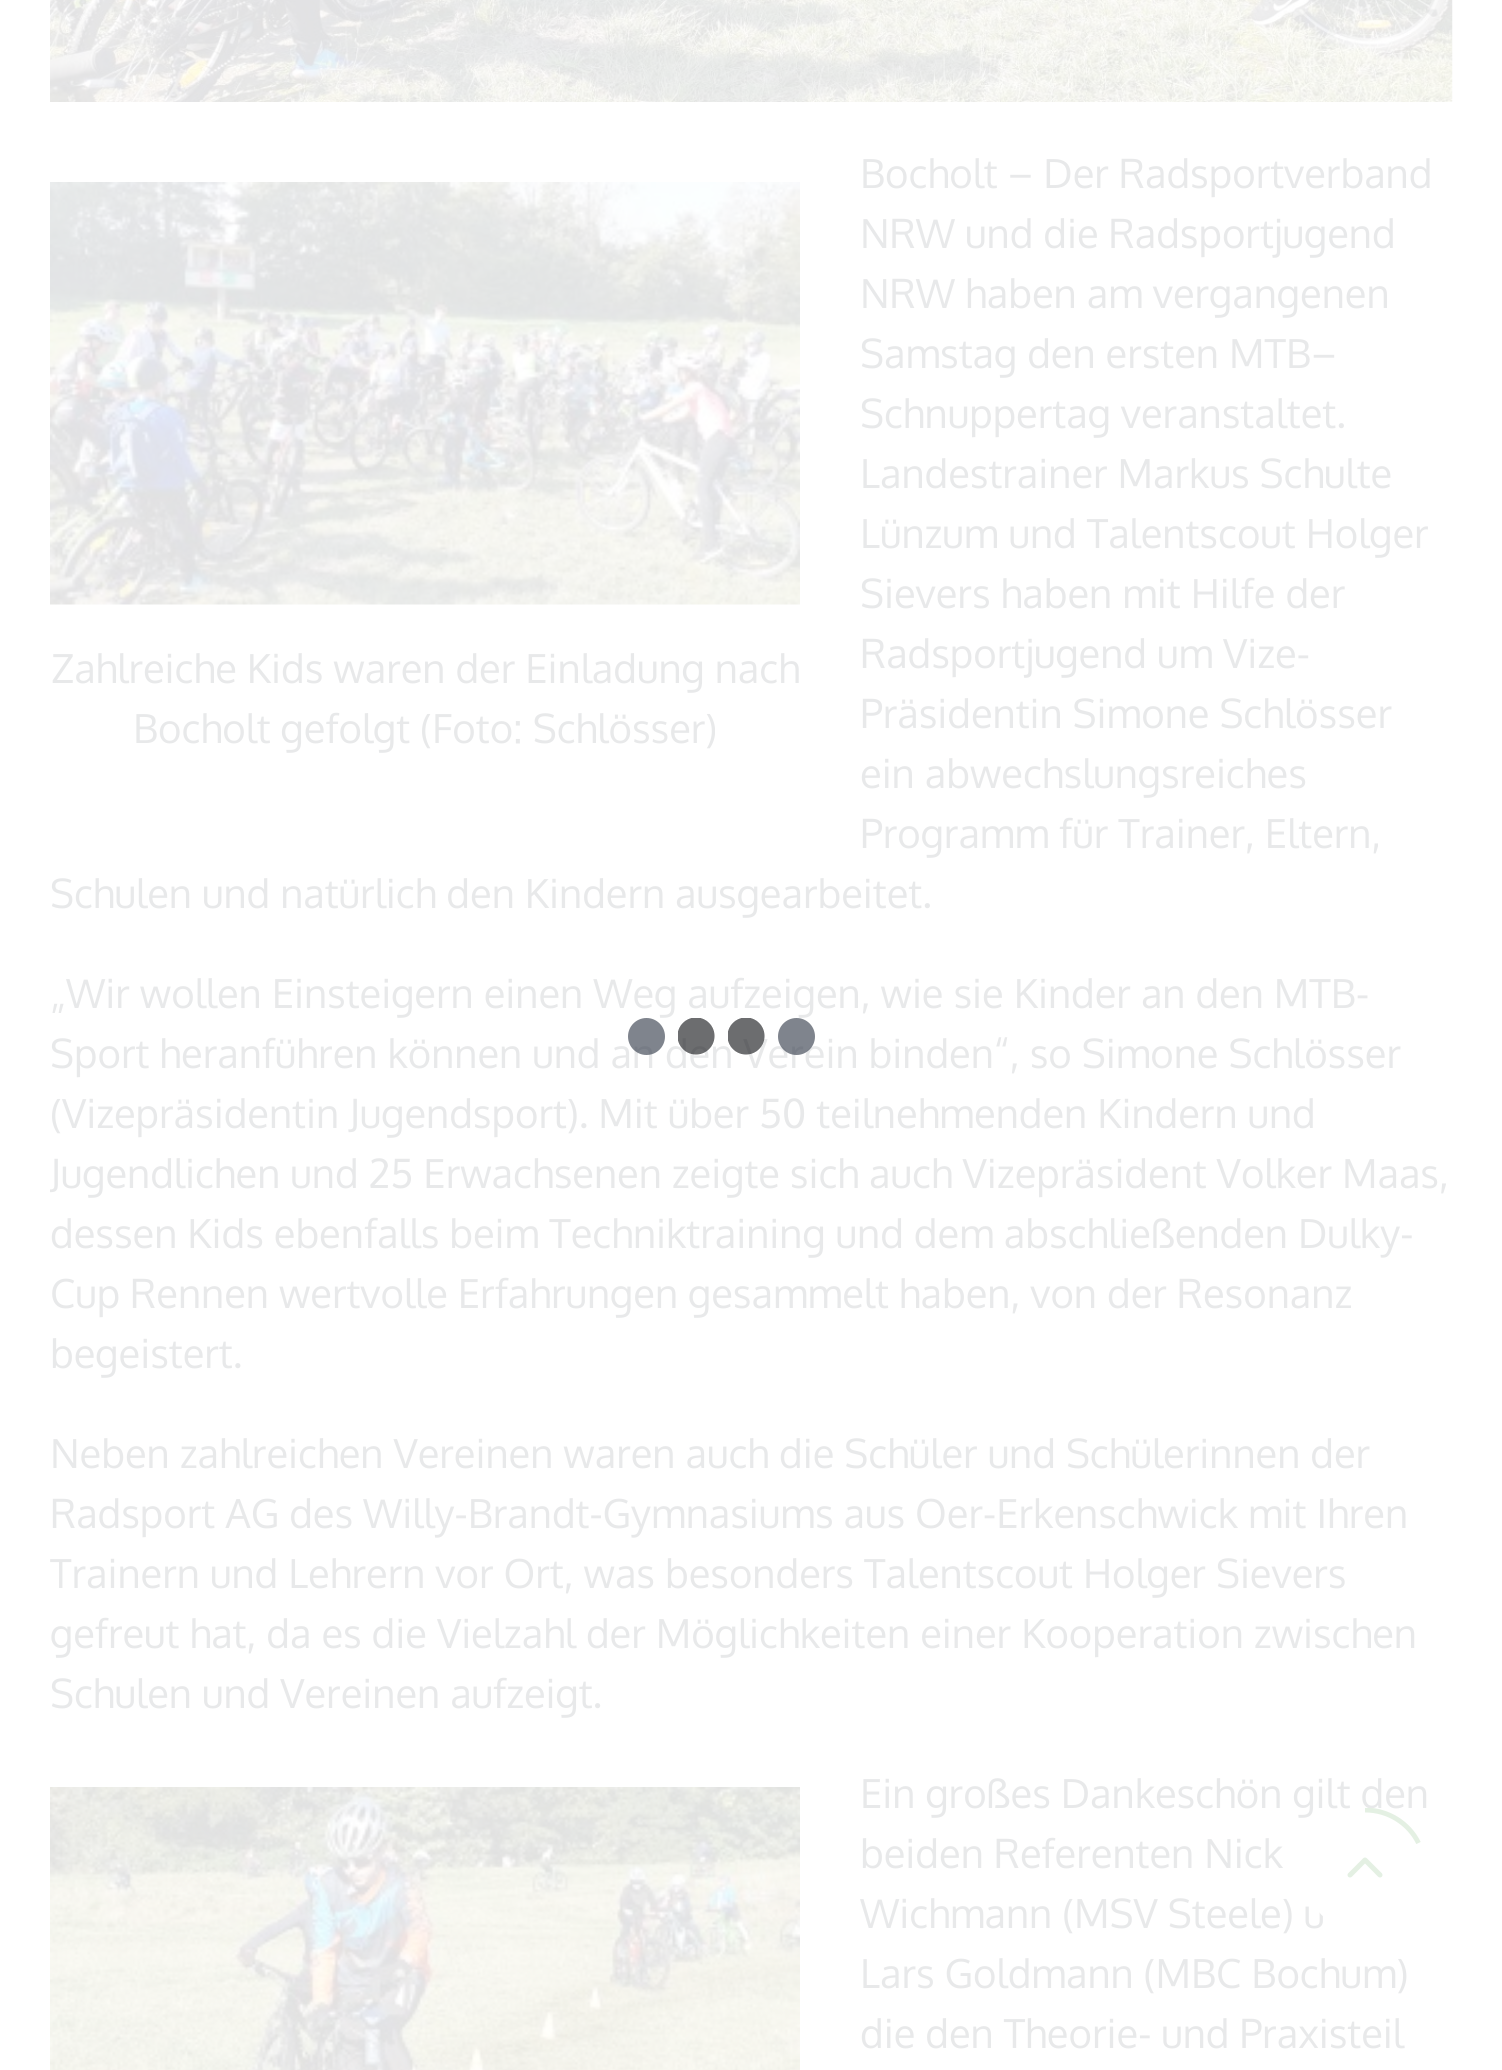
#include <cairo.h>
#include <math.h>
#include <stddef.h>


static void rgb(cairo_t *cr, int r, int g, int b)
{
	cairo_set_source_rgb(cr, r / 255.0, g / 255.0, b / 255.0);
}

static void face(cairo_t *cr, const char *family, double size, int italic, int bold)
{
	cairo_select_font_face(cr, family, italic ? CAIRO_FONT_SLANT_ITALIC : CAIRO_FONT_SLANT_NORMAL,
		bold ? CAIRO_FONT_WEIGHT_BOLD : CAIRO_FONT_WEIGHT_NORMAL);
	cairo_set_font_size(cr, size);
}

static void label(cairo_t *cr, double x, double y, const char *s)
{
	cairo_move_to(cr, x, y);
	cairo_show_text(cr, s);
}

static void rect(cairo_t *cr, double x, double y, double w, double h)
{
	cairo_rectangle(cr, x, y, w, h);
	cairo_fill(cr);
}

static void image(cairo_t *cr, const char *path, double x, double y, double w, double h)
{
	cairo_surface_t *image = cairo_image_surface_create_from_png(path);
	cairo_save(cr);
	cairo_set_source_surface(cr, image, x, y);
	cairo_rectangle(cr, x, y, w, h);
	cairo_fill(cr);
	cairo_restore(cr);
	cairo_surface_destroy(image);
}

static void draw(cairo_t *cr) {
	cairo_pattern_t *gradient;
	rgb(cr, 255, 255, 255);
	cairo_paint(cr);
	image(cr, "image0.png", 50, 0, 1403, 102);
	face(cr, "Oxygen", 40, 0, 0);
	rgb(cr, 232, 233, 234);
	label(cr, 860, 188, "Bocholt – Der Radsportverband");
	label(cr, 860, 248, "NRW und die Radsportjugend");
	label(cr, 860, 308, "NRW haben am vergangenen");
	label(cr, 860, 368, "Samstag den ersten MTB–");
	label(cr, 860, 428, "Schnuppertag veranstaltet.");
	label(cr, 860, 488, "Landestrainer Markus Schulte");
	label(cr, 860, 548, "Lünzum und Talentscout Holger");
	label(cr, 860, 608, "Sievers haben mit Hilfe der");
	label(cr, 860, 668, "Radsportjugend um Vize-");
	label(cr, 860, 728, "Präsidentin Simone Schlösser");
	label(cr, 860, 788, "ein abwechslungsreiches");
	label(cr, 860, 848, "Programm für Trainer, Eltern,");
	label(cr, 50, 908, "Schulen und natürlich den Kindern ausgearbeitet.");
	image(cr, "image1.png", 50, 182, 750, 423);
	label(cr, 51, 683, "Zahlreiche Kids waren der Einladung nach");
	label(cr, 133, 743, "Bocholt gefolgt (Foto: Schlösser)");
	label(cr, 50, 1008, "„Wir wollen Einsteigern einen Weg aufzeigen, wie sie Kinder an den MTB-");
	label(cr, 50, 1068, "Sport heranführen können und an den Verein binden“, so Simone Schlösser");
	label(cr, 50, 1128, "(Vizepräsidentin Jugendsport). Mit über 50 teilnehmenden Kindern und");
	cairo_save(cr);
	cairo_rectangle(cr, 50, 0, 1403, 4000);
	cairo_clip(cr);
	label(cr, 50, 1188, "Jugendlichen und 25 Erwachsenen zeigte sich auch Vizepräsident Volker Maas,");
	cairo_restore(cr);
	label(cr, 50, 1248, "dessen Kids ebenfalls beim Techniktraining und dem abschließenden Dulky-");
	label(cr, 50, 1308, "Cup Rennen wertvolle Erfahrungen gesammelt haben, von der Resonanz");
	label(cr, 50, 1368, "begeistert.");
	label(cr, 50, 1468, "Neben zahlreichen Vereinen waren auch die Schüler und Schülerinnen der");
	label(cr, 50, 1528, "Radsport AG des Willy-Brandt-Gymnasiums aus Oer-Erkenschwick mit Ihren");
	label(cr, 50, 1588, "Trainern und Lehrern vor Ort, was besonders Talentscout Holger Sievers");
	label(cr, 50, 1648, "gefreut hat, da es die Vielzahl der Möglichkeiten einer Kooperation zwischen");
	label(cr, 50, 1708, "Schulen und Vereinen aufzeigt.");
	image(cr, "image2.png", 50, 1787, 750, 283);
	label(cr, 860, 1808, "Ein großes Dankeschön gilt den");
	label(cr, 860, 1868, "beiden Referenten Nick");
	label(cr, 860, 1928, "Wichmann (MSV Steele) u");
	label(cr, 860, 1988, "Lars Goldmann (MBC Bochum)");
	label(cr, 860, 2048, "die den Theorie- und Praxisteil");
	gradient = cairo_pattern_create_radial(746, 1036, 0, 746, 1036, 19);
	cairo_pattern_add_color_stop_rgba(gradient, 0.95, 0.125, 0.129, 0.141, 0.66);
	cairo_pattern_add_color_stop_rgba(gradient, 1, 0.125, 0.129, 0.141, 0);
	cairo_set_source(cr, gradient);
	cairo_pattern_destroy(gradient);
	rect(cr, 728, 1018, 37, 37);
	gradient = cairo_pattern_create_radial(696, 1036, 0, 696, 1036, 19);
	cairo_pattern_add_color_stop_rgba(gradient, 0.95, 0.125, 0.129, 0.141, 0.66);
	cairo_pattern_add_color_stop_rgba(gradient, 1, 0.125, 0.129, 0.141, 0);
	cairo_set_source(cr, gradient);
	cairo_pattern_destroy(gradient);
	rect(cr, 678, 1018, 37, 37);
	cairo_set_source_rgba(cr, 0.239, 0.267, 0.322, 0.66);
	cairo_new_path(cr);
	cairo_arc(cr, 646.5, 1036.5, 18.5, 0, 2 * M_PI);
	cairo_fill(cr);
	cairo_arc(cr, 796.5, 1036.5, 18.5, 0, 2 * M_PI);
	cairo_fill(cr);
	rgb(cr, 255, 255, 255);
	cairo_arc(cr, 1365.5, 1870.5, 62.5, 0, 2 * M_PI);
	cairo_fill(cr);
	cairo_save(cr);
	cairo_rectangle(cr, 1303, 1808, 125, 125);
	cairo_clip(cr);
	cairo_new_path(cr);
	cairo_move_to(cr, 1365, 1810);
	cairo_curve_to(cr, 1388.5, 1810, 1409, 1823.5, 1418.5, 1843);
	rgb(cr, 228, 240, 227);
	cairo_set_line_width(cr, 4.9);
	cairo_stroke(cr);
	cairo_restore(cr);
	image(cr, "image3.png", 1347, 1857, 36, 21);
}

int main(void) {
	cairo_surface_t *surface = cairo_image_surface_create(CAIRO_FORMAT_RGB24, 1502, 2070);
	cairo_t *cr = cairo_create(surface);
	cairo_font_options_t *options = cairo_font_options_create();
	cairo_font_options_set_hint_metrics(options, CAIRO_HINT_METRICS_OFF);
	cairo_font_options_set_hint_style(options, CAIRO_HINT_STYLE_NONE);
	cairo_set_font_options(cr, options);
	cairo_set_miter_limit(cr, 4);
	draw(cr);
	cairo_surface_write_to_png(surface, "render.png");
	cairo_font_options_destroy(options);
	cairo_destroy(cr);
	cairo_surface_destroy(surface);
	return 0;
}
